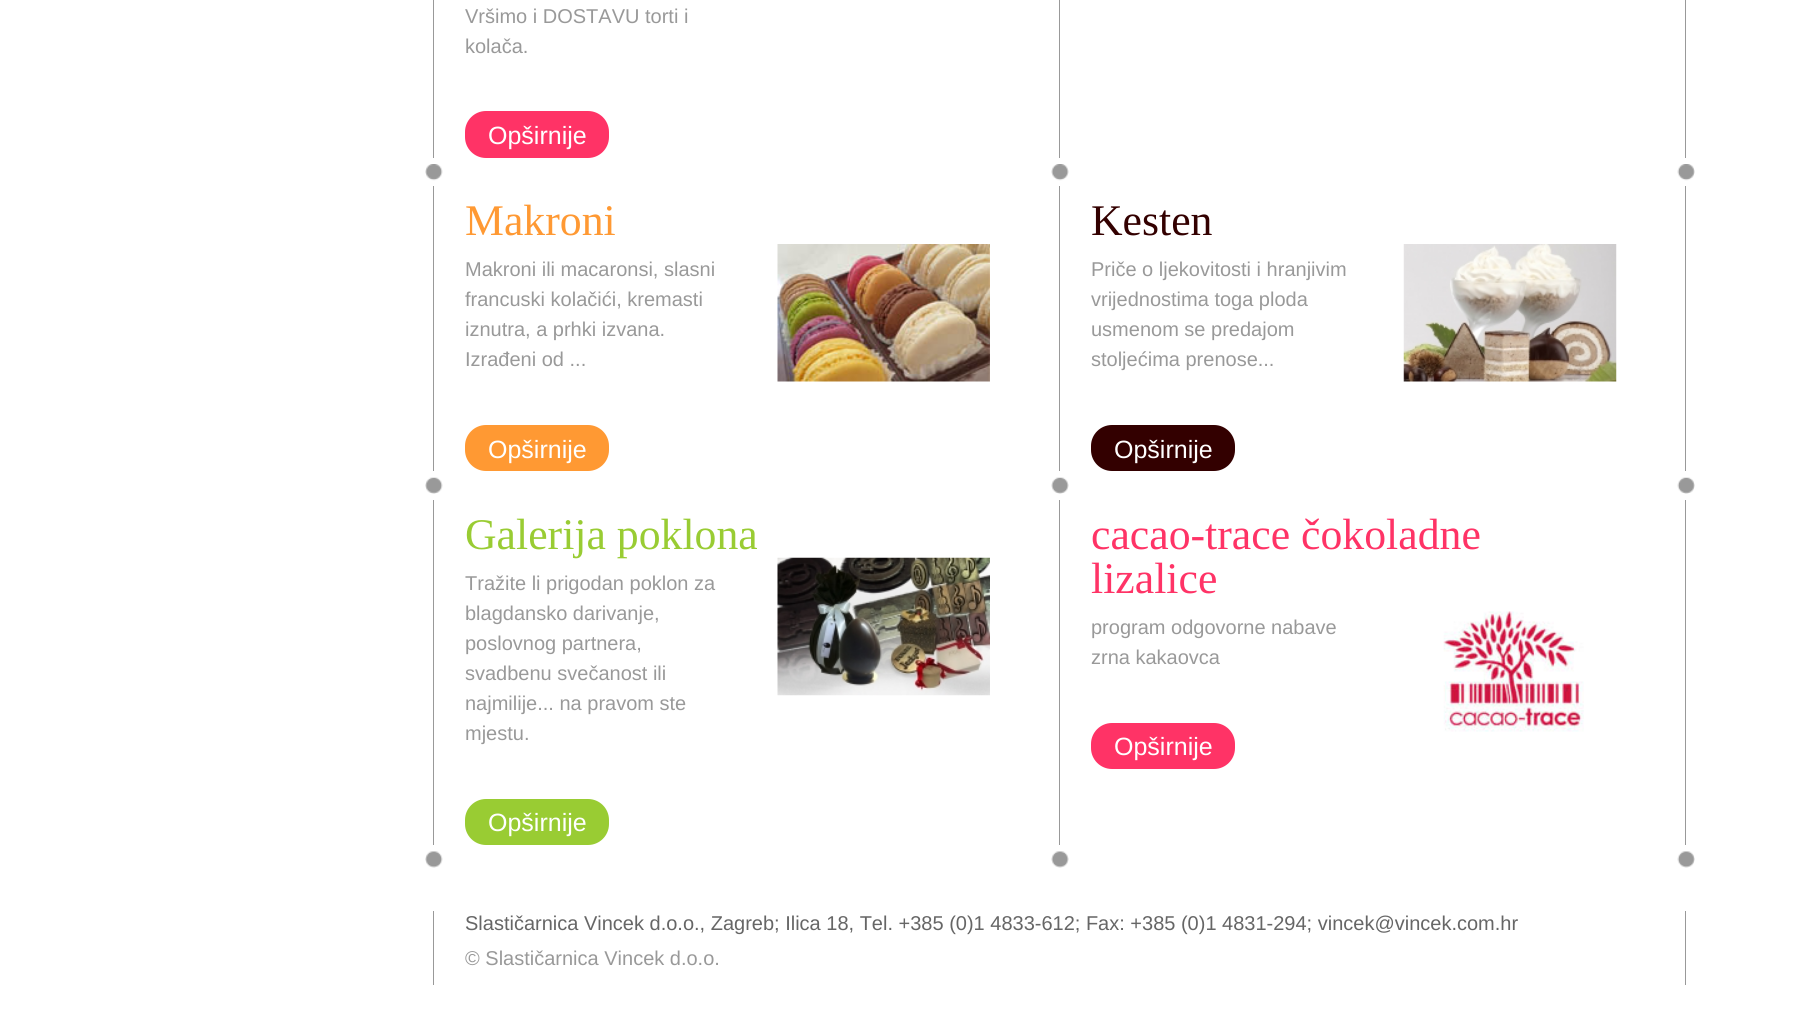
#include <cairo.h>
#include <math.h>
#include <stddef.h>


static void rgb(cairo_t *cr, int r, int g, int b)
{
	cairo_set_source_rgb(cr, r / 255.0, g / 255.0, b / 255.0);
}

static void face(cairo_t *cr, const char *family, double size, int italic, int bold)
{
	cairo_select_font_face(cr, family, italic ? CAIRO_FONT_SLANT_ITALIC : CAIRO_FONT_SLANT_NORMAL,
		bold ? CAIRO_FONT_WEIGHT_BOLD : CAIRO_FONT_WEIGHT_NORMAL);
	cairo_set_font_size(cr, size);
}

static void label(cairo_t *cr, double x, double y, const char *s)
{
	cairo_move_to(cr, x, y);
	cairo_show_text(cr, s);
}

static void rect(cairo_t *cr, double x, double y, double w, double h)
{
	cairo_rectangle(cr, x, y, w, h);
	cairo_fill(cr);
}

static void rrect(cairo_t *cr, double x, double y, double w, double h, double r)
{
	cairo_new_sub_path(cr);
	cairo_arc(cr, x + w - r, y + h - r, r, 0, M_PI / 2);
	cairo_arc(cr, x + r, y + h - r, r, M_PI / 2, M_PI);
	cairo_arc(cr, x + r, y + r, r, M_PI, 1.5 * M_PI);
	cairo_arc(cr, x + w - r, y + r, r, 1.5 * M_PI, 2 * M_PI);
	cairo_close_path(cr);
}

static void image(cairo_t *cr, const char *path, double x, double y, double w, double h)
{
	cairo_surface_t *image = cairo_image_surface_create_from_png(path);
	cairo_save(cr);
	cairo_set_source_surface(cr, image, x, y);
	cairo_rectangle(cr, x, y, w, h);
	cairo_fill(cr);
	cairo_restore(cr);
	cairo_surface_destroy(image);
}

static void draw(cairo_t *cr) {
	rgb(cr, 255, 255, 255);
	cairo_paint(cr);
	rgb(cr, 153, 153, 153);
	rect(cr, 1685, 0, 1, 158);
	rect(cr, 433, 0, 1, 158);
	rect(cr, 1059, 0, 1, 158);
	face(cr, "Liberation Sans", 20, 0, 0);
	label(cr, 465, 23, "Vršimo i DOSTAVU torti i");
	label(cr, 465, 53, "kolača.");
	rgb(cr, 255, 51, 102);
	rrect(cr, 465, 111, 144, 47, 21);
	cairo_fill(cr);
	face(cr, "Liberation Sans", 25, 0, 0);
	rgb(cr, 255, 255, 255);
	label(cr, 488, 144, "Opširnije");
	image(cr, "image0.png", 425, 164, 18, 17);
	image(cr, "image1.png", 1051, 164, 18, 17);
	image(cr, "image2.png", 1677, 164, 18, 17);
	rgb(cr, 153, 153, 153);
	rect(cr, 1685, 186, 1, 285);
	rect(cr, 433, 186, 1, 285);
	rect(cr, 1059, 186, 1, 285);
	face(cr, "Liberation Serif", 43.75, 0, 0);
	rgb(cr, 255, 153, 51);
	label(cr, 465, 235, "Makroni");
	face(cr, "Liberation Sans", 20, 0, 0);
	rgb(cr, 153, 153, 153);
	label(cr, 465, 276, "Makroni ili macaronsi, slasni");
	label(cr, 465, 306, "francuski kolačići, kremasti");
	label(cr, 465, 336, "iznutra, a prhki izvana.");
	label(cr, 465, 366, "Izrađeni od ...");
	image(cr, "image3.png", 777, 244, 213, 138);
	rgb(cr, 255, 153, 51);
	rrect(cr, 465, 425, 144, 46, 21);
	cairo_fill(cr);
	face(cr, "Liberation Sans", 25, 0, 0);
	rgb(cr, 255, 255, 255);
	label(cr, 488, 458, "Opširnije");
	face(cr, "Liberation Serif", 43.75, 0, 0);
	rgb(cr, 51, 0, 0);
	label(cr, 1091, 235, "Kesten");
	face(cr, "Liberation Sans", 20, 0, 0);
	rgb(cr, 153, 153, 153);
	label(cr, 1091, 276, "Priče o ljekovitosti i hranjivim");
	label(cr, 1091, 306, "vrijednostima toga ploda");
	label(cr, 1091, 336, "usmenom se predajom");
	label(cr, 1091, 366, "stoljećima prenose...");
	image(cr, "image4.png", 1403, 244, 214, 138);
	rgb(cr, 51, 0, 0);
	rrect(cr, 1091, 425, 144, 46, 21);
	cairo_fill(cr);
	face(cr, "Liberation Sans", 25, 0, 0);
	rgb(cr, 255, 255, 255);
	label(cr, 1114, 458, "Opširnije");
	image(cr, "image5.png", 425, 477, 18, 17);
	image(cr, "image6.png", 1051, 477, 18, 17);
	image(cr, "image7.png", 1677, 477, 18, 17);
	rgb(cr, 153, 153, 153);
	rect(cr, 1685, 500, 1, 345);
	rect(cr, 433, 500, 1, 345);
	rect(cr, 1059, 500, 1, 345);
	face(cr, "Liberation Serif", 43.75, 0, 0);
	rgb(cr, 153, 204, 51);
	label(cr, 465, 549, "Galerija poklona");
	face(cr, "Liberation Sans", 20, 0, 0);
	rgb(cr, 153, 153, 153);
	label(cr, 465, 590, "Tražite li prigodan poklon za");
	label(cr, 465, 620, "blagdansko darivanje,");
	label(cr, 465, 650, "poslovnog partnera,");
	label(cr, 465, 680, "svadbenu svečanost ili");
	label(cr, 465, 710, "najmilije... na pravom ste");
	label(cr, 465, 740, "mjestu.");
	image(cr, "image8.png", 777, 557, 213, 139);
	rgb(cr, 153, 204, 51);
	rrect(cr, 465, 799, 144, 46, 21);
	cairo_fill(cr);
	face(cr, "Liberation Sans", 25, 0, 0);
	rgb(cr, 255, 255, 255);
	label(cr, 488, 831, "Opširnije");
	face(cr, "Liberation Serif", 43.75, 0, 0);
	rgb(cr, 255, 51, 102);
	label(cr, 1091, 549, "cacao-trace čokoladne");
	label(cr, 1091, 593, "lizalice");
	face(cr, "Liberation Sans", 20, 0, 0);
	rgb(cr, 153, 153, 153);
	label(cr, 1091, 634, "program odgovorne nabave");
	label(cr, 1091, 664, "zrna kakaovca");
	image(cr, "image9.png", 1443, 611, 141, 121);
	rgb(cr, 255, 51, 102);
	rrect(cr, 1091, 723, 144, 46, 21);
	cairo_fill(cr);
	face(cr, "Liberation Sans", 25, 0, 0);
	rgb(cr, 255, 255, 255);
	label(cr, 1114, 755, "Opširnije");
	image(cr, "image10.png", 425, 851, 18, 17);
	image(cr, "image11.png", 1051, 851, 18, 17);
	image(cr, "image12.png", 1677, 851, 18, 17);
	rgb(cr, 153, 153, 153);
	rect(cr, 1685, 911, 1, 74);
	rect(cr, 433, 911, 1, 74);
	face(cr, "Liberation Sans", 20, 0, 0);
	rgb(cr, 102, 102, 102);
	label(cr, 465, 930, "Slastičarnica Vincek d.o.o., Zagreb; Ilica 18, Tel. +385 (0)1 4833-612; Fax: +385 (0)1 4831-294; vincek@vincek.com.hr");
	rgb(cr, 153, 153, 153);
	label(cr, 465, 965, "© Slastičarnica Vincek d.o.o.");
}

int main(void) {
	cairo_surface_t *surface = cairo_image_surface_create(CAIRO_FORMAT_RGB24, 1820, 1017);
	cairo_t *cr = cairo_create(surface);
	cairo_font_options_t *options = cairo_font_options_create();
	cairo_font_options_set_hint_metrics(options, CAIRO_HINT_METRICS_OFF);
	cairo_font_options_set_hint_style(options, CAIRO_HINT_STYLE_NONE);
	cairo_set_font_options(cr, options);
	cairo_set_miter_limit(cr, 4);
	draw(cr);
	cairo_surface_write_to_png(surface, "render.png");
	cairo_font_options_destroy(options);
	cairo_destroy(cr);
	cairo_surface_destroy(surface);
	return 0;
}
